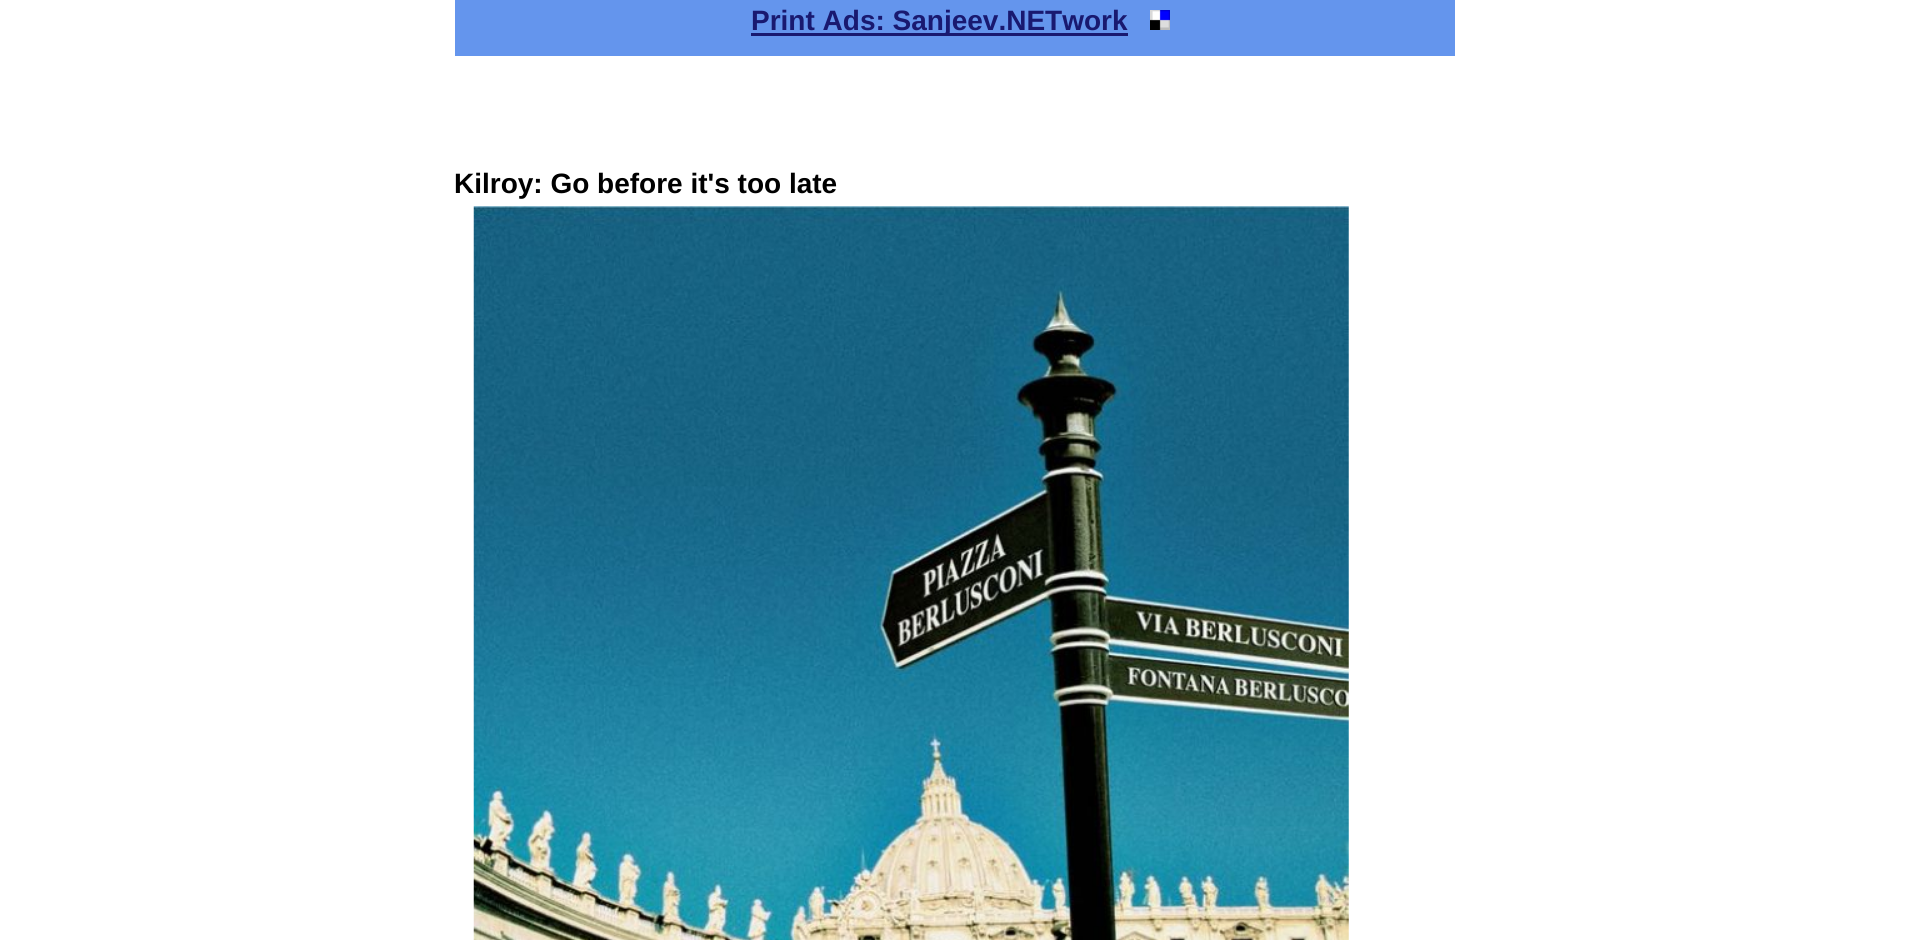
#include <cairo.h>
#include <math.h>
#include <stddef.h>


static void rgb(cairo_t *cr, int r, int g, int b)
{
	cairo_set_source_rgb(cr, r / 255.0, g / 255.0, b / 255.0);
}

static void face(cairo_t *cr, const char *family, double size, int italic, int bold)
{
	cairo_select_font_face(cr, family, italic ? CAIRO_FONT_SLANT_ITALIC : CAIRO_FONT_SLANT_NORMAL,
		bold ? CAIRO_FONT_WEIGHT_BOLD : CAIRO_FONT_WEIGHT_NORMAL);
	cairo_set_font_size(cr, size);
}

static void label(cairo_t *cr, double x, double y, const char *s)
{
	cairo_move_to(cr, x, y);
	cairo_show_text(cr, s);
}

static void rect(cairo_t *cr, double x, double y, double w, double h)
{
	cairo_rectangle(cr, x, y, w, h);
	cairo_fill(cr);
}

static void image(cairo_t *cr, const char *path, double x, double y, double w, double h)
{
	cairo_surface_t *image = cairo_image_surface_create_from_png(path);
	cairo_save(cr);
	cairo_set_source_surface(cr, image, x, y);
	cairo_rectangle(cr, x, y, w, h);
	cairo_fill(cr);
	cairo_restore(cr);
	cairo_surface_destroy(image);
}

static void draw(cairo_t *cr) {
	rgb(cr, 255, 255, 255);
	cairo_paint(cr);
	rgb(cr, 100, 149, 237);
	rect(cr, 455, 0, 1000, 56);
	rgb(cr, 25, 25, 112);
	rect(cr, 751, 33, 377, 3);
	face(cr, "Liberation Sans", 28, 0, 1);
	label(cr, 751, 30, "Print Ads: Sanjeev.NETwork");
	image(cr, "image0.png", 1150, 10, 20, 20);
	rgb(cr, 0, 0, 0);
	label(cr, 454, 193, "Kilroy: Go before it's too late");
	image(cr, "image1.png", 473, 206, 876, 734);
}

int main(void) {
	cairo_surface_t *surface = cairo_image_surface_create(CAIRO_FORMAT_RGB24, 1908, 940);
	cairo_t *cr = cairo_create(surface);
	cairo_font_options_t *options = cairo_font_options_create();
	cairo_font_options_set_hint_metrics(options, CAIRO_HINT_METRICS_OFF);
	cairo_font_options_set_hint_style(options, CAIRO_HINT_STYLE_NONE);
	cairo_set_font_options(cr, options);
	cairo_set_miter_limit(cr, 4);
	draw(cr);
	cairo_surface_write_to_png(surface, "render.png");
	cairo_font_options_destroy(options);
	cairo_destroy(cr);
	cairo_surface_destroy(surface);
	return 0;
}
